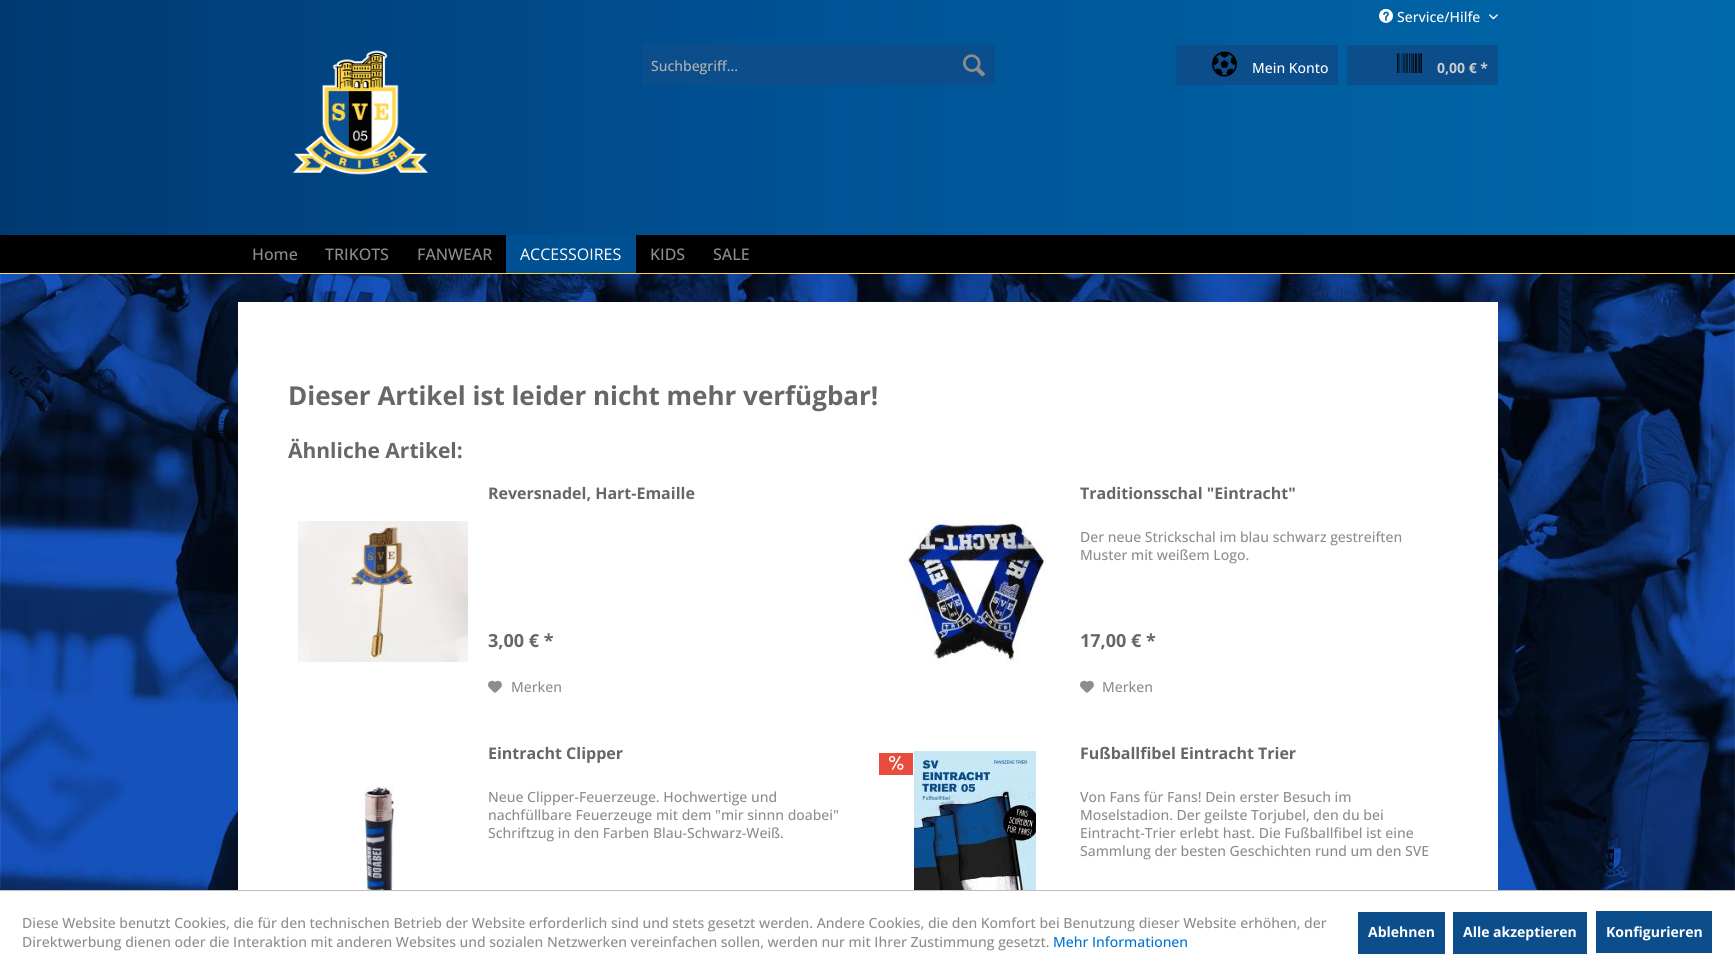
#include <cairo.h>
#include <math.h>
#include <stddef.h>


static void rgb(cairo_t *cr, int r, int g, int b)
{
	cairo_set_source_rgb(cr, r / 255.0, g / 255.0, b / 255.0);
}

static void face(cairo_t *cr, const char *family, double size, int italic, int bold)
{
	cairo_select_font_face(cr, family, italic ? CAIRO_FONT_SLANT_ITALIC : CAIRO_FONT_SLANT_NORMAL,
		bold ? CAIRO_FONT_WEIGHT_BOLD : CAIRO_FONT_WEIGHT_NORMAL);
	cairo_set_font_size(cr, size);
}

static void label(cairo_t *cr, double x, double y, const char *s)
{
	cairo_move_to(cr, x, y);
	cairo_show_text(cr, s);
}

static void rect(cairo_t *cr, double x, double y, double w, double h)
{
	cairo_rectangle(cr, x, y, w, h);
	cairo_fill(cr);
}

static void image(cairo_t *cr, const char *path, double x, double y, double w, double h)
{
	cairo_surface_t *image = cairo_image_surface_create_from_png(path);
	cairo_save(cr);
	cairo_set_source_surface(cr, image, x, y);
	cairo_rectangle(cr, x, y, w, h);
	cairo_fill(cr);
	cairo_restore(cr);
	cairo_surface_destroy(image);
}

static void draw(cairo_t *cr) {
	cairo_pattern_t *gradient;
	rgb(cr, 255, 255, 255);
	cairo_paint(cr);
	image(cr, "image0.png", 0, 274, 1735, 616);
	gradient = cairo_pattern_create_linear(0, 118, 1735, 117);
	cairo_pattern_add_color_stop_rgba(gradient, 0, 0, 0.224, 0.447, 1);
	cairo_pattern_add_color_stop_rgba(gradient, 0.44, 0, 0.318, 0.58, 1);
	cairo_pattern_add_color_stop_rgba(gradient, 1, 0, 0.412, 0.667, 1);
	cairo_set_source(cr, gradient);
	cairo_pattern_destroy(gradient);
	rect(cr, 0, 0, 1735, 235);
	image(cr, "image1.png", 1379, 8, 14, 15);
	face(cr, "Open Sans Medium", 14, 0, 0);
	rgb(cr, 255, 255, 255);
	label(cr, 1397, 22, "Service/Hilfe");
	image(cr, "image2.png", 1489, 14, 9, 6);
	image(cr, "image3.png", 293, 50, 135, 125);
	rgb(cr, 12, 78, 139);
	rect(cr, 642, 45, 353, 40);
	rgb(cr, 179, 179, 179);
	label(cr, 651, 71, "Suchbegriff...");
	image(cr, "image4.png", 963, 54, 22, 23);
	rgb(cr, 12, 78, 139);
	rect(cr, 1176, 45, 162, 40);
	image(cr, "image5.png", 1212, 51, 25, 26);
	rgb(cr, 255, 255, 255);
	label(cr, 1252, 73, "Mein Konto");
	rgb(cr, 12, 78, 139);
	rect(cr, 1347, 45, 151, 40);
	image(cr, "image6.png", 1397, 53, 25, 20);
	face(cr, "Open Sans", 14, 0, 1);
	rgb(cr, 204, 204, 204);
	label(cr, 1437, 73, "0,00 € *");
	rgb(cr, 0, 0, 0);
	rect(cr, 0, 235, 1735, 38);
	rgb(cr, 255, 214, 74);
	rect(cr, 0, 273, 1735, 1);
	face(cr, "Open Sans Medium", 16, 0, 0);
	rgb(cr, 141, 141, 141);
	label(cr, 252, 260, "Home");
	label(cr, 325, 260, "TRIKOTS");
	label(cr, 417, 260, "FANWEAR");
	rgb(cr, 0, 81, 148);
	rect(cr, 506, 235, 130, 38);
	face(cr, "Open Sans", 16, 0, 0);
	rgb(cr, 255, 255, 255);
	label(cr, 520, 260, "ACCESSOIRES");
	face(cr, "Open Sans Medium", 16, 0, 0);
	rgb(cr, 141, 141, 141);
	label(cr, 650, 260, "KIDS");
	label(cr, 713, 260, "SALE");
	rgb(cr, 255, 255, 255);
	rect(cr, 238, 302, 1260, 588);
	face(cr, "Open Sans", 26, 0, 1);
	rgb(cr, 103, 103, 103);
	label(cr, 288, 405, "Dieser Artikel ist leider nicht mehr verfügbar!");
	face(cr, "Open Sans", 21, 0, 1);
	label(cr, 288, 458, "Ähnliche Artikel:");
	face(cr, "Open Sans", 16, 0, 1);
	label(cr, 488, 499, "Reversnadel, Hart-Emaille");
	image(cr, "image7.png", 298, 521, 170, 141);
	face(cr, "Open Sans", 18, 0, 1);
	label(cr, 488, 647, "3,00 € *");
	image(cr, "image8.png", 488, 680, 14, 13);
	face(cr, "Open Sans Medium", 14, 0, 0);
	rgb(cr, 141, 141, 141);
	label(cr, 511, 692, "Merken");
	face(cr, "Open Sans", 16, 0, 1);
	rgb(cr, 103, 103, 103);
	label(cr, 1080, 499, "Traditionsschal \"Eintracht\"");
	image(cr, "image9.png", 903, 519, 144, 144);
	face(cr, "Open Sans Medium", 14, 0, 0);
	rgb(cr, 141, 141, 141);
	label(cr, 1080, 542, "Der neue Strickschal im blau schwarz gestreiften");
	label(cr, 1080, 560, "Muster mit weißem Logo.");
	face(cr, "Open Sans", 18, 0, 1);
	rgb(cr, 103, 103, 103);
	label(cr, 1080, 647, "17,00 € *");
	image(cr, "image8.png", 1080, 680, 14, 13);
	face(cr, "Open Sans Medium", 14, 0, 0);
	rgb(cr, 141, 141, 141);
	label(cr, 1102, 692, "Merken");
	face(cr, "Open Sans", 16, 0, 1);
	rgb(cr, 103, 103, 103);
	label(cr, 488, 759, "Eintracht Clipper");
	image(cr, "image10.png", 360, 786, 40, 104);
	face(cr, "Open Sans Medium", 14, 0, 0);
	rgb(cr, 141, 141, 141);
	label(cr, 488, 802, "Neue Clipper-Feuerzeuge. Hochwertige und");
	label(cr, 488, 820, "nachfüllbare Feuerzeuge mit dem \"mir sinnn doabei\"");
	label(cr, 488, 838, "Schriftzug in den Farben Blau-Schwarz-Weiß.");
	rgb(cr, 231, 76, 60);
	rect(cr, 879, 753, 34, 22);
	image(cr, "image11.png", 889, 755, 15, 15);
	image(cr, "image12.png", 914, 751, 122, 139);
	face(cr, "Open Sans", 16, 0, 1);
	rgb(cr, 103, 103, 103);
	label(cr, 1080, 759, "Fußballfibel Eintracht Trier");
	face(cr, "Open Sans Medium", 14, 0, 0);
	rgb(cr, 141, 141, 141);
	label(cr, 1080, 802, "Von Fans für Fans! Dein erster Besuch im");
	label(cr, 1080, 820, "Moselstadion. Der geilste Torjubel, den du bei");
	label(cr, 1080, 838, "Eintracht-Trier erlebt hast. Die Fußballfibel ist eine");
	label(cr, 1080, 856, "Sammlung der besten Geschichten rund um den SVE");
	rgb(cr, 193, 188, 188);
	rect(cr, 0, 890, 1735, 1);
	rgb(cr, 141, 141, 141);
	label(cr, 22, 928, "Diese Website benutzt Cookies, die für den technischen Betrieb der Website erforderlich sind und stets gesetzt werden. Andere Cookies, die den Komfort bei Benutzung dieser Website erhöhen, der");
	label(cr, 22, 947, "Direktwerbung dienen oder die Interaktion mit anderen Websites und sozialen Netzwerken vereinfachen sollen, werden nur mit Ihrer Zustimmung gesetzt.");
	rgb(cr, 0, 117, 213);
	label(cr, 1053, 947, "Mehr Informationen");
	rgb(cr, 12, 78, 139);
	rect(cr, 1358, 912, 87, 42);
	face(cr, "Open Sans", 14, 0, 1);
	rgb(cr, 255, 255, 255);
	label(cr, 1368, 937, "Ablehnen");
	rgb(cr, 12, 78, 139);
	rect(cr, 1453, 912, 134, 42);
	rgb(cr, 255, 255, 255);
	label(cr, 1463, 937, "Alle akzeptieren");
	rgb(cr, 12, 78, 139);
	rect(cr, 1596, 911, 116, 42);
	rgb(cr, 255, 255, 255);
	label(cr, 1606, 937, "Konfigurieren");
}

int main(void) {
	cairo_surface_t *surface = cairo_image_surface_create(CAIRO_FORMAT_RGB24, 1735, 973);
	cairo_t *cr = cairo_create(surface);
	cairo_font_options_t *options = cairo_font_options_create();
	cairo_font_options_set_hint_metrics(options, CAIRO_HINT_METRICS_OFF);
	cairo_font_options_set_hint_style(options, CAIRO_HINT_STYLE_NONE);
	cairo_set_font_options(cr, options);
	cairo_set_miter_limit(cr, 4);
	draw(cr);
	cairo_surface_write_to_png(surface, "render.png");
	cairo_font_options_destroy(options);
	cairo_destroy(cr);
	cairo_surface_destroy(surface);
	return 0;
}
